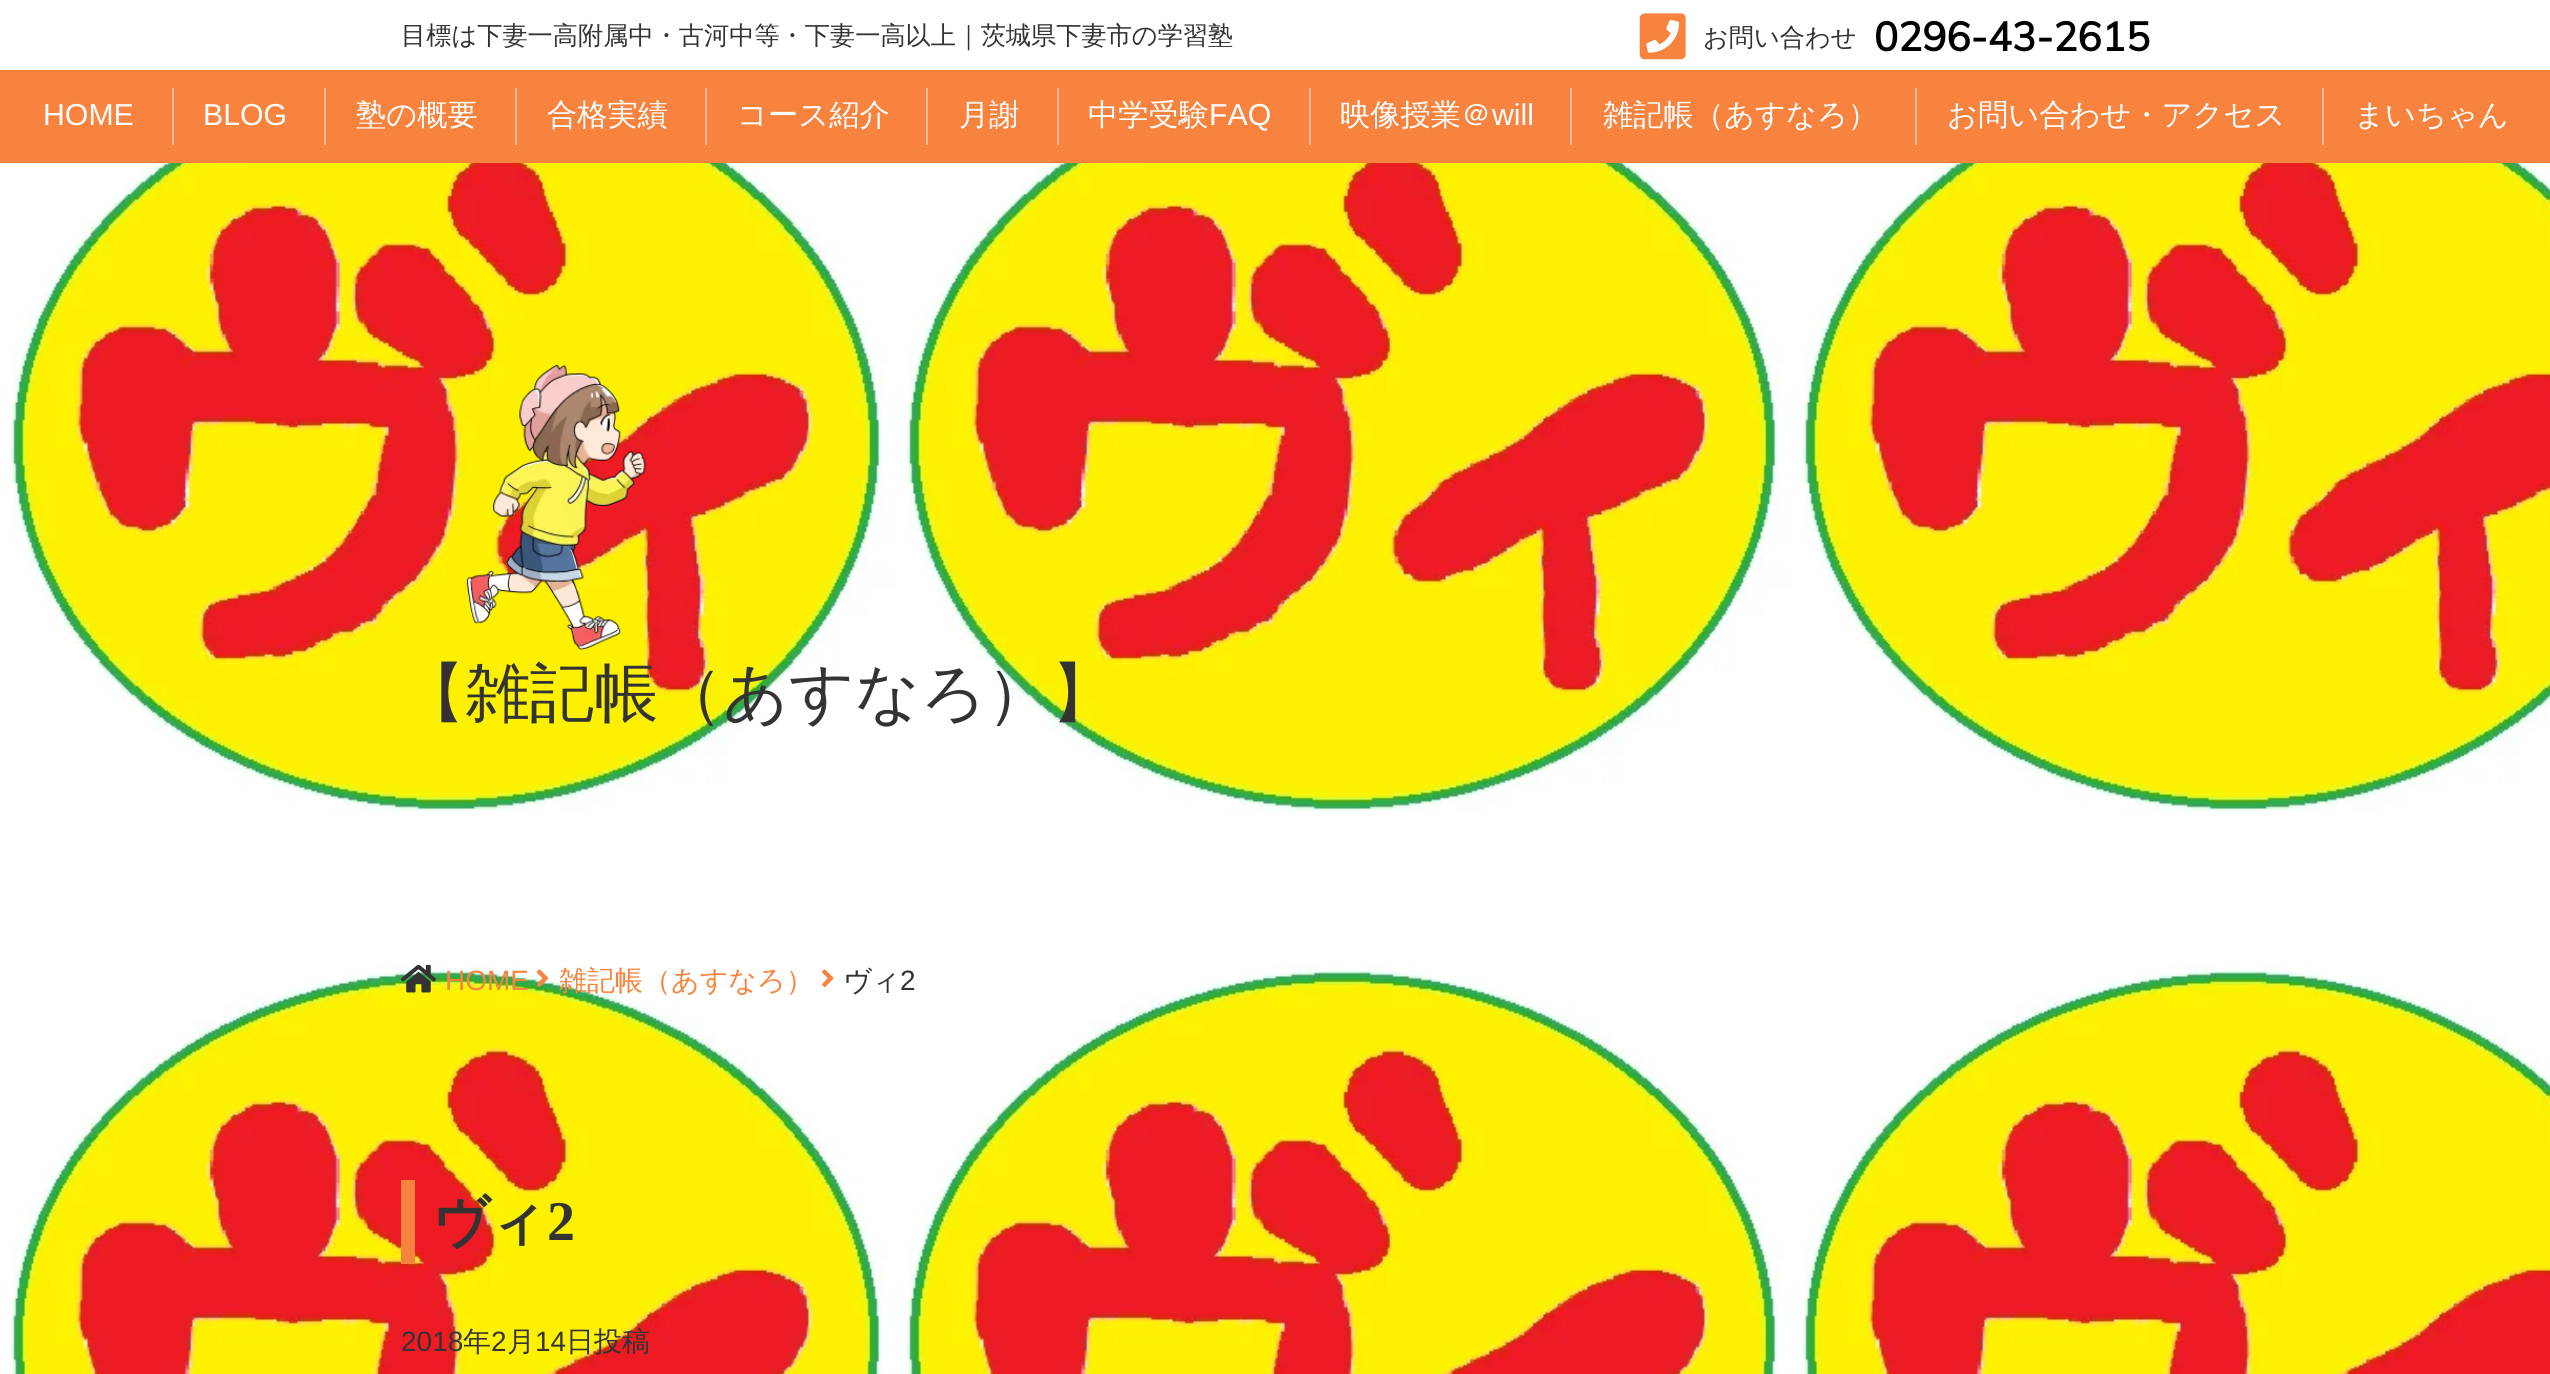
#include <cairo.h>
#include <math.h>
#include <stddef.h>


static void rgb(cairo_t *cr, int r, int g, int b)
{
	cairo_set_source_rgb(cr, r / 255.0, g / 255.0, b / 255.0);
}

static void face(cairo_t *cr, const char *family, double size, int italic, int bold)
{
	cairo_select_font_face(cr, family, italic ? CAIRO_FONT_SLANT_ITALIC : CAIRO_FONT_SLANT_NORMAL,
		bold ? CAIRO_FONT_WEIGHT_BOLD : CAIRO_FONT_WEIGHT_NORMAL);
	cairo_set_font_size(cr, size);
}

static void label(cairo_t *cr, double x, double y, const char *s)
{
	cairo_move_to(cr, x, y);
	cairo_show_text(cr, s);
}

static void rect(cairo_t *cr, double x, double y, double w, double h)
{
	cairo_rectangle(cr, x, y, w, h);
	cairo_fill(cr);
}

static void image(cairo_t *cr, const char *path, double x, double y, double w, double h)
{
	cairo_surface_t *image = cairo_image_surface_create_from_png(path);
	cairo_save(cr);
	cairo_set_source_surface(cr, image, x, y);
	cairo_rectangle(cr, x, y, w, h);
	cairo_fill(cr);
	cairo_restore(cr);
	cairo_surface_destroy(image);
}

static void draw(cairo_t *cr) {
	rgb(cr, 255, 255, 255);
	cairo_paint(cr);
	image(cr, "image0.png", 9, 163, 2541, 1211);
	face(cr, "WenQuanYi Zen Hei Medium", 25.2, 0, 0);
	rgb(cr, 51, 51, 51);
	label(cr, 401, 44, "目標は下妻一高附属中・古河中等・下妻一高以上｜茨城県下妻市の学習塾");
	image(cr, "image1.png", 1639, 13, 47, 47);
	label(cr, 1703, 46, "お問い合わせ");
	face(cr, "Muli", 40.25, 0, 1);
	rgb(cr, 0, 0, 0);
	label(cr, 1874, 51, "0296-43-2615");
	rgb(cr, 248, 131, 62);
	rect(cr, 0, 70, 2550, 93);
	face(cr, "Liberation Sans", 30.25, 0, 0);
	rgb(cr, 255, 255, 255);
	label(cr, 43, 125, "HOME");
	rgb(cr, 253, 187, 149);
	rect(cr, 172, 88, 2, 57);
	rgb(cr, 255, 255, 255);
	label(cr, 203, 125, "BLOG");
	rgb(cr, 253, 187, 149);
	rect(cr, 324, 88, 2, 57);
	face(cr, "WenQuanYi Zen Hei Medium", 30.25, 0, 0);
	rgb(cr, 255, 255, 255);
	label(cr, 356, 125, "塾の概要");
	rgb(cr, 253, 187, 149);
	rect(cr, 515, 88, 2, 57);
	rgb(cr, 255, 255, 255);
	label(cr, 547, 125, "合格実績");
	rgb(cr, 253, 187, 149);
	rect(cr, 705, 88, 2, 57);
	rgb(cr, 255, 255, 255);
	label(cr, 737, 125, "コース紹介");
	rgb(cr, 253, 187, 149);
	rect(cr, 926, 88, 2, 57);
	rgb(cr, 255, 255, 255);
	label(cr, 959, 125, "月謝");
	rgb(cr, 253, 187, 149);
	rect(cr, 1057, 88, 2, 57);
	rgb(cr, 255, 255, 255);
	label(cr, 1088, 125, "中学受験");
	face(cr, "Liberation Sans", 30.25, 0, 0);
	label(cr, 1209, 125, "FAQ");
	rgb(cr, 253, 187, 149);
	rect(cr, 1309, 88, 2, 57);
	face(cr, "WenQuanYi Zen Hei Medium", 30.25, 0, 0);
	rgb(cr, 255, 255, 255);
	label(cr, 1340, 125, "映像授業＠");
	face(cr, "Liberation Sans", 30.25, 0, 0);
	label(cr, 1492, 125, "will");
	rgb(cr, 253, 187, 149);
	rect(cr, 1570, 88, 2, 57);
	face(cr, "WenQuanYi Zen Hei Medium", 30.25, 0, 0);
	rgb(cr, 255, 255, 255);
	label(cr, 1603, 125, "雑記帳（あすなろ）");
	rgb(cr, 253, 187, 149);
	rect(cr, 1915, 88, 2, 57);
	rgb(cr, 255, 255, 255);
	label(cr, 1947, 125, "お問い合わせ・アクセス");
	rgb(cr, 253, 187, 149);
	rect(cr, 2322, 88, 2, 57);
	rgb(cr, 255, 255, 255);
	label(cr, 2354, 125, "まいちゃん");
	image(cr, "image2.png", 466, 364, 180, 286);
	face(cr, "WenQuanYi Zen Hei Medium", 64.4, 0, 0);
	rgb(cr, 51, 51, 51);
	label(cr, 401, 715, "【雑記帳（あすなろ）】");
	image(cr, "image3.png", 400, 964, 37, 29);
	face(cr, "Liberation Sans", 28, 0, 0);
	rgb(cr, 248, 131, 62);
	label(cr, 445, 990, "HOME");
	image(cr, "image4.png", 536, 969, 13, 18);
	face(cr, "WenQuanYi Zen Hei Medium", 28, 0, 0);
	label(cr, 559, 990, "雑記帳（あすなろ）");
	image(cr, "image5.png", 822, 969, 12, 18);
	rgb(cr, 51, 51, 51);
	label(cr, 843, 990, "ヴィ");
	face(cr, "Liberation Sans", 28, 0, 0);
	label(cr, 900, 990, "2");
	rgb(cr, 248, 131, 62);
	rect(cr, 401, 1180, 14, 84);
	face(cr, "WenQuanYi Zen Hei", 56, 0, 1);
	rgb(cr, 51, 51, 51);
	label(cr, 432, 1240, "ヴィ");
	face(cr, "Liberation Serif", 56, 0, 1);
	label(cr, 547, 1240, "2");
	face(cr, "Liberation Sans", 28, 0, 0);
	label(cr, 401, 1351, "2018");
	face(cr, "WenQuanYi Zen Hei Medium", 28, 0, 0);
	label(cr, 463, 1351, "年");
	face(cr, "Liberation Sans", 28, 0, 0);
	label(cr, 491, 1351, "2");
	face(cr, "WenQuanYi Zen Hei Medium", 28, 0, 0);
	label(cr, 507, 1351, "月");
	face(cr, "Liberation Sans", 28, 0, 0);
	label(cr, 535, 1351, "14");
	face(cr, "WenQuanYi Zen Hei Medium", 28, 0, 0);
	label(cr, 566, 1351, "日投稿");
}

int main(void) {
	cairo_surface_t *surface = cairo_image_surface_create(CAIRO_FORMAT_RGB24, 2550, 1374);
	cairo_t *cr = cairo_create(surface);
	cairo_font_options_t *options = cairo_font_options_create();
	cairo_font_options_set_hint_metrics(options, CAIRO_HINT_METRICS_OFF);
	cairo_font_options_set_hint_style(options, CAIRO_HINT_STYLE_NONE);
	cairo_set_font_options(cr, options);
	cairo_set_miter_limit(cr, 4);
	draw(cr);
	cairo_surface_write_to_png(surface, "render.png");
	cairo_font_options_destroy(options);
	cairo_destroy(cr);
	cairo_surface_destroy(surface);
	return 0;
}
